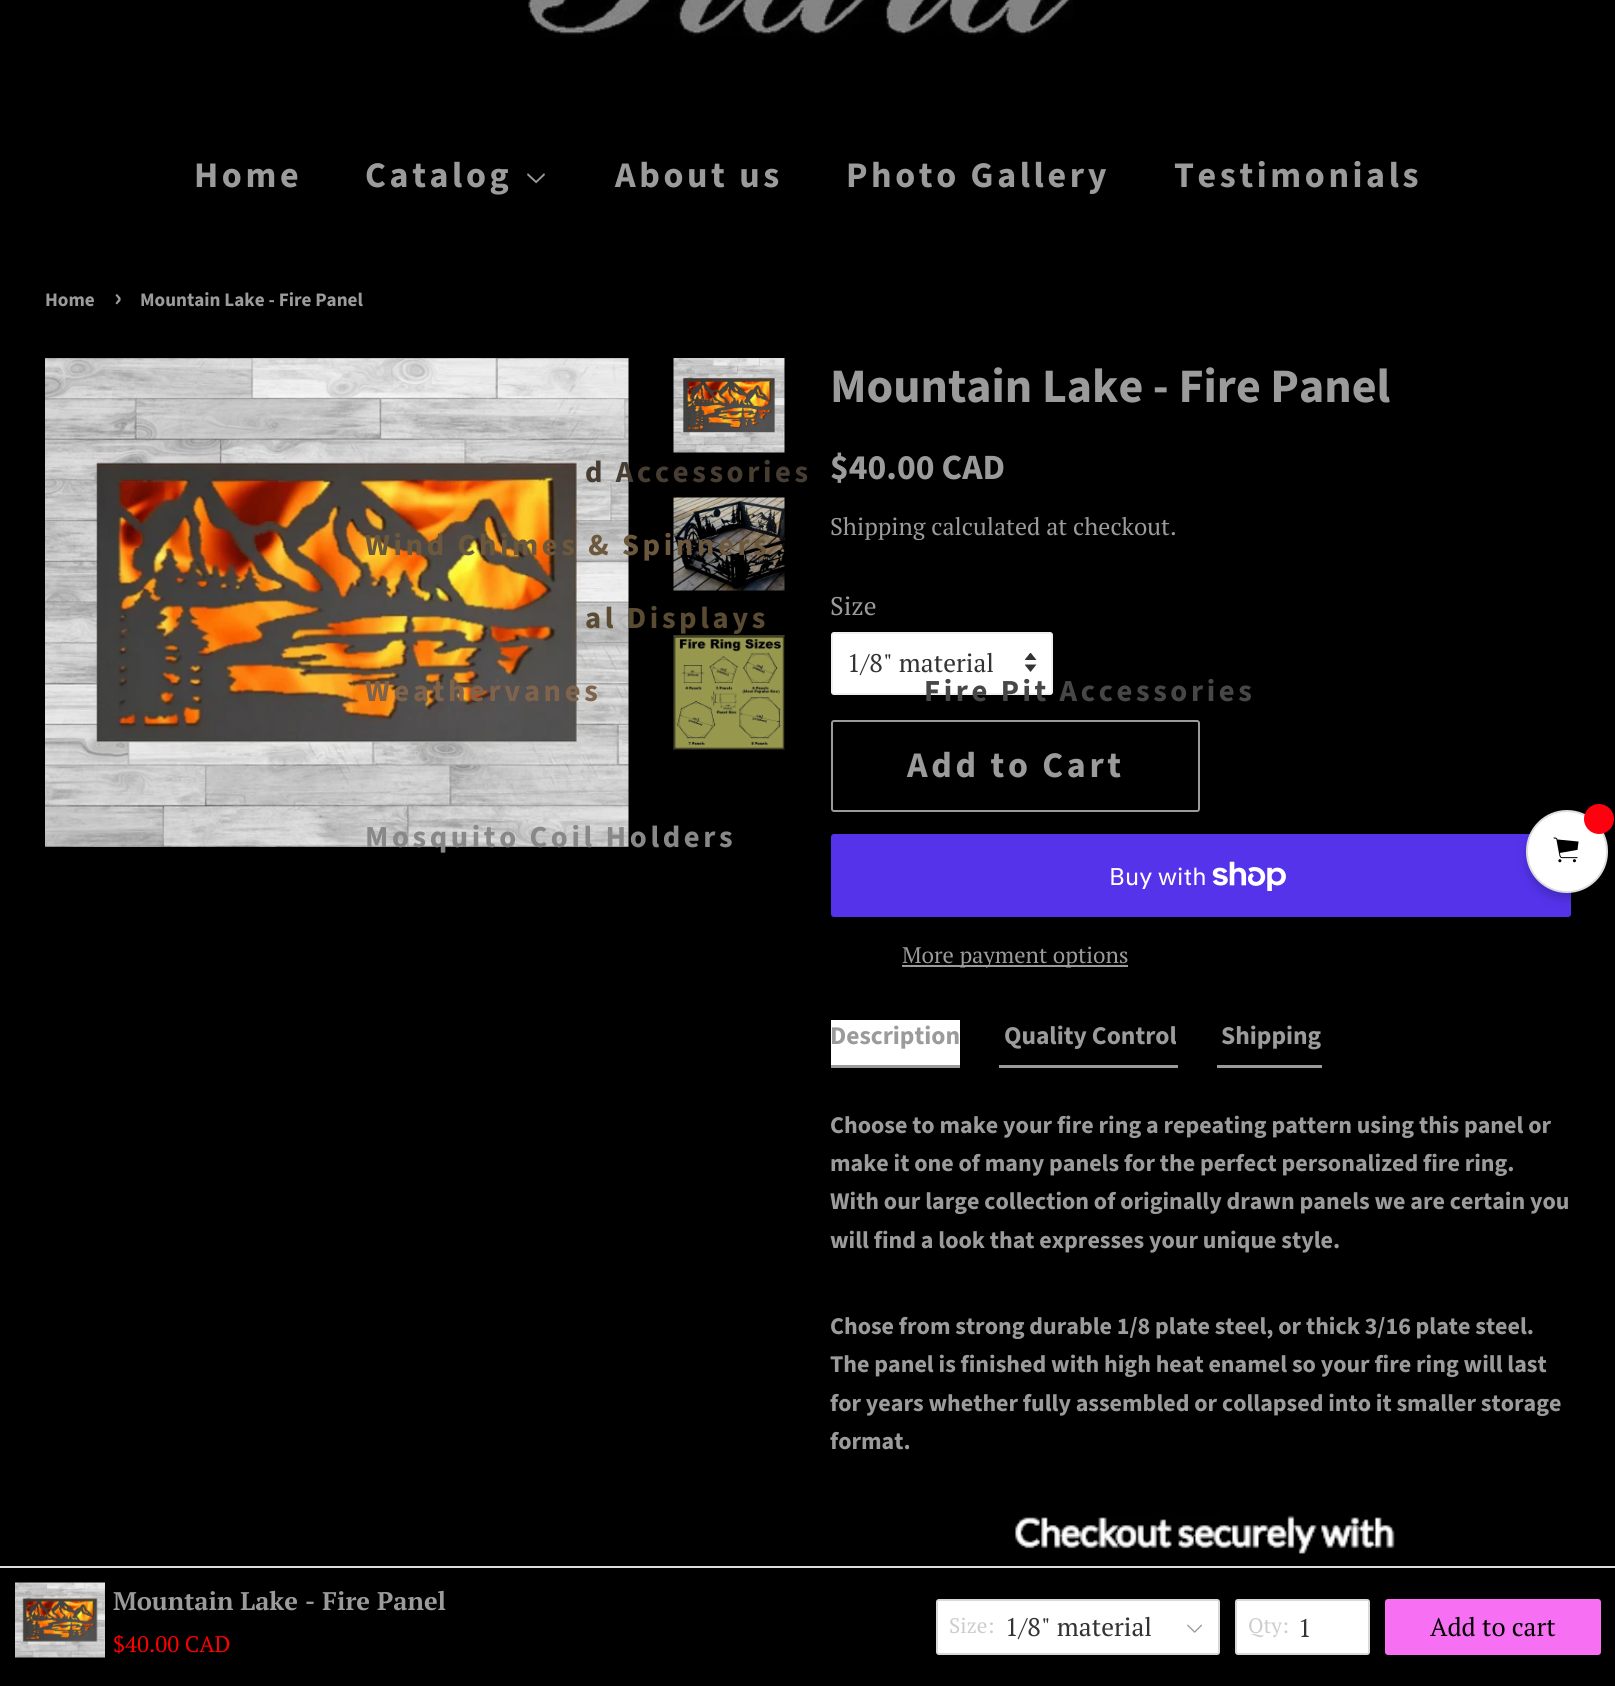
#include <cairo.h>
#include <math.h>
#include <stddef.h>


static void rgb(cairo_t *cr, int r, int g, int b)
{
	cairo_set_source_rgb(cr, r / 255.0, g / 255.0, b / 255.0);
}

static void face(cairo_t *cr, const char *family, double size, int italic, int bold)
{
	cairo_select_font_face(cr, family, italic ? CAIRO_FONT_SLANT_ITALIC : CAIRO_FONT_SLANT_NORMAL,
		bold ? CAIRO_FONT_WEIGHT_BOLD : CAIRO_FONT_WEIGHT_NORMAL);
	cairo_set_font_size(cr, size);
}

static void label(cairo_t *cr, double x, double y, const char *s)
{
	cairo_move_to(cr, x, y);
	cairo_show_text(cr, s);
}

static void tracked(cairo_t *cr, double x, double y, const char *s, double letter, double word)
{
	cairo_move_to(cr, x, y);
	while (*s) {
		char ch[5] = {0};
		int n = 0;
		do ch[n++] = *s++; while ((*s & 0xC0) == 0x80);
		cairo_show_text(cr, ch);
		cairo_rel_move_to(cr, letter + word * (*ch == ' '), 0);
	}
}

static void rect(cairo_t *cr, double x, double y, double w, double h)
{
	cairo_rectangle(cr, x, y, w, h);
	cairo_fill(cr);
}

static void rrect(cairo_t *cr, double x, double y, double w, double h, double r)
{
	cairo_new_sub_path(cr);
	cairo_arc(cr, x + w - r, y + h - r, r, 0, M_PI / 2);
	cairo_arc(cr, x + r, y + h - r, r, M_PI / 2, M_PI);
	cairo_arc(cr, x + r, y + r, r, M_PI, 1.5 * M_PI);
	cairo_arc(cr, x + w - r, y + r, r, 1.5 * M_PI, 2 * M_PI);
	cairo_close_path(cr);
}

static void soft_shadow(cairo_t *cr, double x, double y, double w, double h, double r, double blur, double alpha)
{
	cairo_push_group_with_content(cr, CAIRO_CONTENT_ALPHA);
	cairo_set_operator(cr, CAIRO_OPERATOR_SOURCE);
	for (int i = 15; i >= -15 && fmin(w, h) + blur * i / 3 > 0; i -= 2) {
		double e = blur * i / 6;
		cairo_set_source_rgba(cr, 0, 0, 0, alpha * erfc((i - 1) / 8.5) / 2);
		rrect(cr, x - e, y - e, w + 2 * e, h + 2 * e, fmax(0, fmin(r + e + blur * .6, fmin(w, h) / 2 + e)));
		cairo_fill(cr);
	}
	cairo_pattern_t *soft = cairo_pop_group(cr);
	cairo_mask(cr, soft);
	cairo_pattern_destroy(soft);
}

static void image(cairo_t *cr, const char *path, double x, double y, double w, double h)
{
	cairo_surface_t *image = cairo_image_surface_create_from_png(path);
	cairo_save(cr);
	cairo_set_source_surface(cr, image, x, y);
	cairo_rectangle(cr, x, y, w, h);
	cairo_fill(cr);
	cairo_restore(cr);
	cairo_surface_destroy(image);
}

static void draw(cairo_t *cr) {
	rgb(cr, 0, 0, 0);
	cairo_paint(cr);
	image(cr, "image0.png", 528, 0, 545, 38);
	face(cr, "Source Sans Pro", 36, 0, 1);
	rgb(cr, 155, 155, 155);
	tracked(cr, 365, 187, "Catalog", 3.6, 0);
	image(cr, "image1.png", 527, 173, 18, 11);
	image(cr, "image2.png", 45, 358, 584, 489);
	image(cr, "image4.png", 673, 497, 112, 94);
	face(cr, "Source Sans Pro", 30.6, 0, 1);
	rgb(cr, 108, 89, 61);
	tracked(cr, 365, 555, "Wind Chimes & Spinners", 3.6, 0);
	rgb(cr, 71, 61, 51);
	tracked(cr, 585, 482, "d Accessories", 3.6, 0);
	rgb(cr, 255, 255, 255);
	rrect(cr, 831, 632, 222, 63, 3);
	cairo_fill(cr);
	image(cr, "image6.png", 1025, 653, 12, 19);
	rrect(cr, 832, 633, 220, 61, 2);
	cairo_set_source_rgba(cr, 0.608, 0.608, 0.608, 0.15);
	cairo_stroke(cr);
	rgb(cr, 71, 71, 71);
	tracked(cr, 924, 701, "Fire Pit Accessories", 3.6, 0);
	rgb(cr, 90, 76, 50);
	tracked(cr, 585, 628, "al Displays", 3.6, 0);
	rgb(cr, 127, 99, 74);
	tracked(cr, 365, 701, "Weathervanes", 3.6, 0);
	rgb(cr, 136, 136, 136);
	tracked(cr, 365, 847, "Mosquito Coil Holders", 3.6, 0);
	face(cr, "Source Sans Pro", 36, 0, 1);
	rgb(cr, 155, 155, 155);
	tracked(cr, 194, 187, "Home", 3.6, 0);
	tracked(cr, 615, 187, "About us", 3.6, 0);
	tracked(cr, 846, 187, "Photo Gallery", 3.6, 0);
	tracked(cr, 1174, 187, "Testimonials", 3.6, 0);
	face(cr, "Source Sans Pro", 19.1, 0, 1);
	label(cr, 45, 306, "Home");
	face(cr, "Source Sans Pro", 27, 0, 1);
	label(cr, 114, 306, "›");
	face(cr, "Source Sans Pro", 19.1, 0, 1);
	label(cr, 140, 306, "Mountain Lake - Fire Panel");
	image(cr, "image3.png", 673, 358, 112, 95);
	image(cr, "image5.png", 673, 635, 112, 115);
	face(cr, "Source Sans Pro", 48, 0, 1);
	label(cr, 830, 402, "Mountain Lake - Fire Panel");
	face(cr, "Source Sans Pro", 35.5, 0, 1);
	label(cr, 830, 479, "$40.00 CAD");
	face(cr, "PT Serif", 24, 0, 0);
	label(cr, 830, 535, "Shipping calculated at checkout.");
	face(cr, "PT Serif", 25.5, 0, 0);
	label(cr, 830, 615, "Size");
	rgb(cr, 51, 51, 51);
	label(cr, 847, 672, "1/8\" material");
	rrect(cr, 832, 721, 367, 90, 2);
	rgb(cr, 155, 155, 155);
	cairo_stroke(cr);
	face(cr, "Source Sans Pro", 36, 0, 1);
	tracked(cr, 907, 777, "Add to Cart", 3.6, 0);
	rgb(cr, 84, 51, 235);
	rrect(cr, 831, 834, 740, 83, 3);
	cairo_fill(cr);
	face(cr, "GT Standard", 24, 0, 0);
	rgb(cr, 255, 255, 255);
	label(cr, 1109, 885, "Buy with");
	image(cr, "image7.png", 1212, 861, 74, 30);
	rgb(cr, 155, 155, 155);
	rect(cr, 902, 965, 226, 2);
	face(cr, "PT Serif", 22.5, 0, 0);
	label(cr, 902, 963, "More payment options");
	rgb(cr, 255, 255, 255);
	rect(cr, 831, 1020, 129, 45);
	rgb(cr, 155, 155, 155);
	rect(cr, 831, 1065, 129, 3);
	face(cr, "Source Sans Pro", 25.5, 0, 1);
	label(cr, 830, 1044, "Description");
	rect(cr, 999, 1065, 179, 3);
	label(cr, 1004, 1044, "Quality Control");
	rect(cr, 1217, 1065, 105, 3);
	label(cr, 1221, 1044, "Shipping");
	face(cr, "Source Sans Pro", 24, 0, 1);
	label(cr, 830, 1133, "Choose to make your fire ring a repeating pattern using this panel or");
	label(cr, 830, 1171, "make it one of many panels for the perfect personalized fire ring.");
	label(cr, 830, 1209, "With our large collection of originally drawn panels we are certain you");
	label(cr, 830, 1248, "will find a look that expresses your unique style.");
	label(cr, 830, 1334, "Chose from strong durable 1/8 plate steel, or thick 3/16 plate steel.");
	label(cr, 830, 1372, "The panel is finished with high heat enamel so your fire ring will last");
	label(cr, 830, 1411, "for years whether fully assembled or collapsed into it smaller storage");
	label(cr, 830, 1449, "format.");
	image(cr, "image8.png", 904, 1515, 615, 51);
	rgb(cr, 0, 0, 0);
	soft_shadow(cr, 1526, 816, 82, 83, 41, 3, 0.08);
	soft_shadow(cr, 1527, 816, 83, 83, 41.5, 7.5, 0.12);
	rgb(cr, 255, 255, 255);
	rrect(cr, 1527, 811, 80, 81, 40);
	cairo_fill_preserve(cr);
	rgb(cr, 221, 221, 221);
	cairo_stroke(cr);
	rgb(cr, 255, 0, 15);
	cairo_arc(cr, 1599, 819, 15, 0, 2 * M_PI);
	cairo_fill(cr);
	image(cr, "image9.png", 1553, 837, 26, 26);
	rgb(cr, 221, 221, 221);
	rect(cr, 0, 1566, 1615, 2);
	image(cr, "image10.png", 15, 1582, 90, 76);
	face(cr, "PT Serif", 25.5, 0, 1);
	rgb(cr, 155, 155, 155);
	label(cr, 113, 1610, "Mountain Lake - Fire Panel");
	face(cr, "PT Serif", 22.5, 0, 0);
	rgb(cr, 255, 0, 0);
	label(cr, 113, 1652, "$40.00 CAD");
	rgb(cr, 255, 255, 255);
	rrect(cr, 936, 1599, 284, 56, 3);
	cairo_fill(cr);
	rrect(cr, 937, 1600, 282, 54, 2);
	cairo_set_source_rgba(cr, 0, 0, 0, 0.15);
	cairo_stroke(cr);
	face(cr, "PT Serif", 21, 0, 0);
	rgb(cr, 205, 205, 205);
	label(cr, 949, 1633, "Size:");
	face(cr, "PT Serif", 25.5, 0, 0);
	rgb(cr, 51, 51, 51);
	label(cr, 1005, 1636, "1/8\" material");
	image(cr, "image11.png", 1187, 1624, 16, 9);
	rgb(cr, 255, 255, 255);
	rrect(cr, 1235, 1599, 135, 56, 3);
	cairo_fill(cr);
	rrect(cr, 1236, 1600, 133, 54, 2);
	cairo_set_source_rgba(cr, 0, 0, 0, 0.15);
	cairo_stroke(cr);
	face(cr, "PT Serif", 21, 0, 0);
	rgb(cr, 205, 205, 205);
	label(cr, 1248, 1633, "Qty:");
	face(cr, "PT Serif", 25.5, 0, 0);
	rgb(cr, 51, 51, 51);
	label(cr, 1298, 1637, "1");
	rgb(cr, 247, 111, 243);
	rrect(cr, 1385, 1599, 216, 56, 3);
	cairo_fill(cr);
	rgb(cr, 0, 0, 0);
	label(cr, 1430, 1636, "Add to cart");
}

int main(void) {
	cairo_surface_t *surface = cairo_image_surface_create(CAIRO_FORMAT_RGB24, 1615, 1686);
	cairo_t *cr = cairo_create(surface);
	cairo_font_options_t *options = cairo_font_options_create();
	cairo_font_options_set_hint_metrics(options, CAIRO_HINT_METRICS_OFF);
	cairo_font_options_set_hint_style(options, CAIRO_HINT_STYLE_NONE);
	cairo_set_font_options(cr, options);
	cairo_set_miter_limit(cr, 4);
	draw(cr);
	cairo_surface_write_to_png(surface, "render.png");
	cairo_font_options_destroy(options);
	cairo_destroy(cr);
	cairo_surface_destroy(surface);
	return 0;
}
